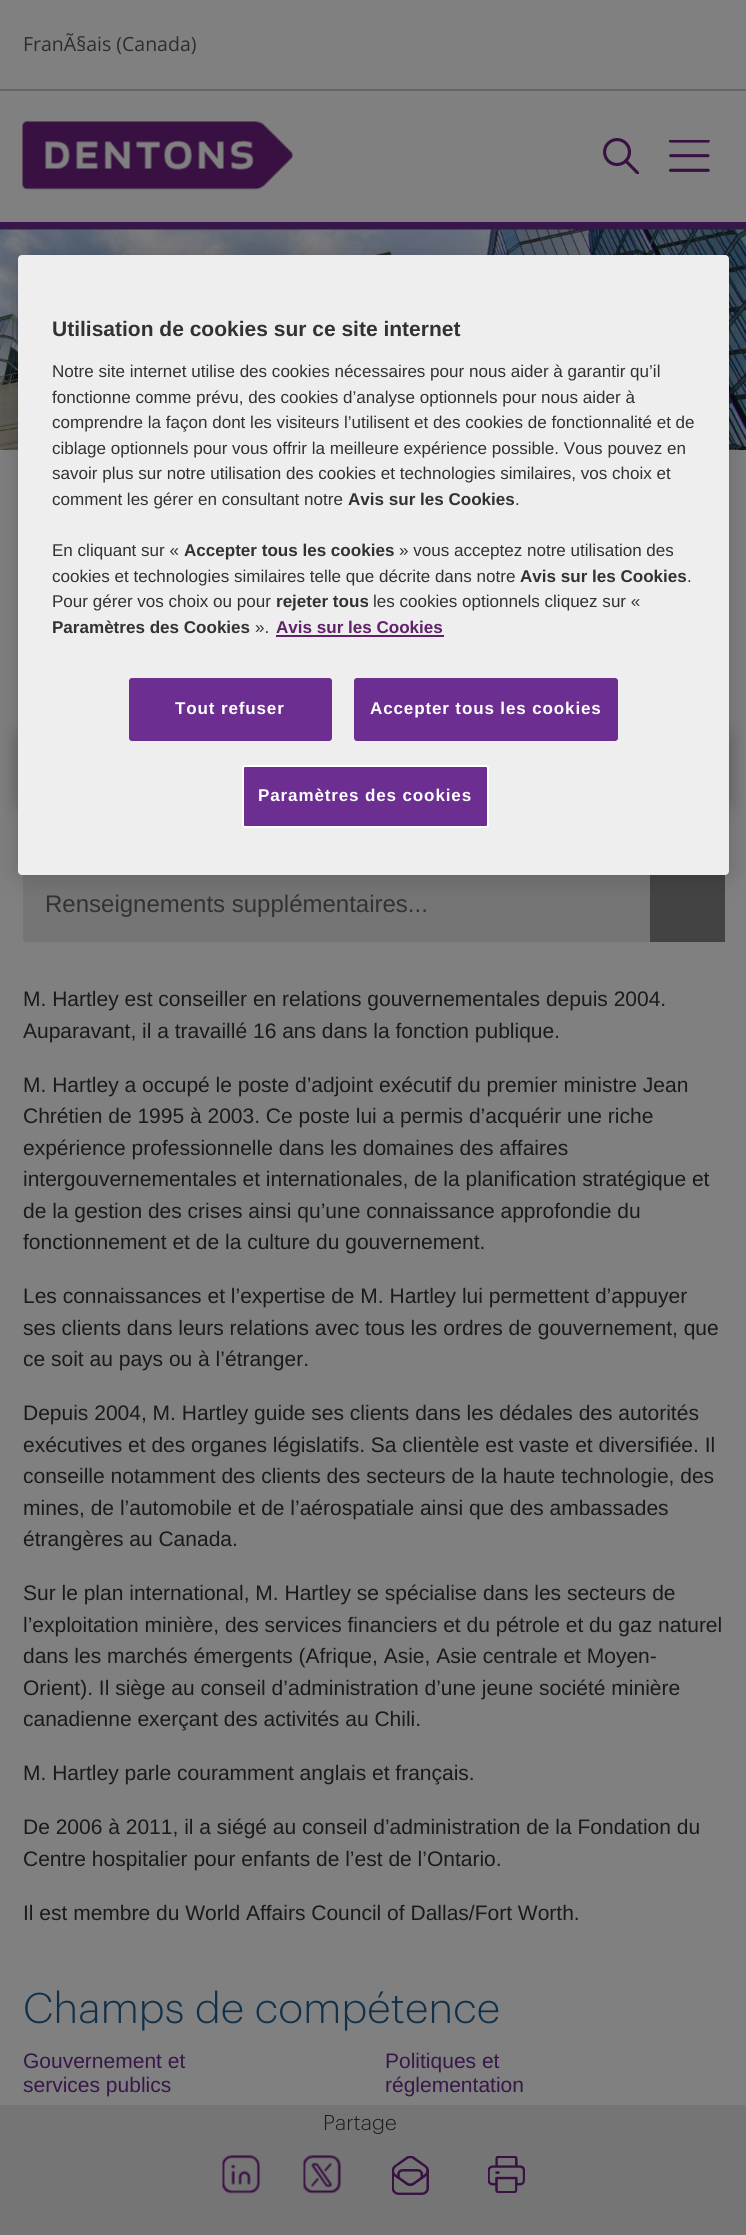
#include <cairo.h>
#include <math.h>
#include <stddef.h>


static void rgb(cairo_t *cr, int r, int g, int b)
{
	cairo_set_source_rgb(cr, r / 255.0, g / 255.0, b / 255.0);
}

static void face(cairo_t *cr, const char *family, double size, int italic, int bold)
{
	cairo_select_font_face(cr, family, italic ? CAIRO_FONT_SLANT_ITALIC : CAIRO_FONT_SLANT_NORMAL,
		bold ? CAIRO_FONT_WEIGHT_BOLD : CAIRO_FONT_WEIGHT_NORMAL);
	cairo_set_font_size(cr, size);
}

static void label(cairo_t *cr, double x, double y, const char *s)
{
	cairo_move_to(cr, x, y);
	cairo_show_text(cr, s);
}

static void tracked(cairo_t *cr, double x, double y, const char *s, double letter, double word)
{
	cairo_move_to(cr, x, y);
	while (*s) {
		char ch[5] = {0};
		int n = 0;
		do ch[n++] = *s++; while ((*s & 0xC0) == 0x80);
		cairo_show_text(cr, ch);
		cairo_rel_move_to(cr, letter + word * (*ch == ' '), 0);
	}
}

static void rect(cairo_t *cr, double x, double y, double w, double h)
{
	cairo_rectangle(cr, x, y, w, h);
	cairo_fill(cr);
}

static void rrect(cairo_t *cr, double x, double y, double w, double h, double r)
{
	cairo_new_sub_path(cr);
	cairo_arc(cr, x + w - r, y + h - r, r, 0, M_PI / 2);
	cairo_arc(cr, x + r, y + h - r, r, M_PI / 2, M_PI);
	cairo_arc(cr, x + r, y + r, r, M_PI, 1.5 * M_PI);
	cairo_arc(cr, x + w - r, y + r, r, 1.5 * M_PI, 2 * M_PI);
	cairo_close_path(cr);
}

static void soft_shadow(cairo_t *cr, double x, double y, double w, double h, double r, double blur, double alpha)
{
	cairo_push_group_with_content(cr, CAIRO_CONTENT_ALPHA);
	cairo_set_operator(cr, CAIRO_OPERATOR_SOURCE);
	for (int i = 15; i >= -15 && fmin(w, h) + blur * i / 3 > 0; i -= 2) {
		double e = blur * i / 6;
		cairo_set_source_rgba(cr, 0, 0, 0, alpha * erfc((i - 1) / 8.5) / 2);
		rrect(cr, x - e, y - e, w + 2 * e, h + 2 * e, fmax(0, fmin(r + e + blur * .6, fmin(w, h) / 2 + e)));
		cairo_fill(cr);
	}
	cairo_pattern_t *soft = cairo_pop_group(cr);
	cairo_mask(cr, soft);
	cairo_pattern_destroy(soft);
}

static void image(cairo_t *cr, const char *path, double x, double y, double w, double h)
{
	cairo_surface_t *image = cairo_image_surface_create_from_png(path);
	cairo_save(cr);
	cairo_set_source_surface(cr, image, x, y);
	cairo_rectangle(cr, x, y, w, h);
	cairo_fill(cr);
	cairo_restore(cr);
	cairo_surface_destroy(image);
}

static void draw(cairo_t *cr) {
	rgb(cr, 128, 128, 128);
	cairo_paint(cr);
	rgb(cr, 100, 101, 100);
	rect(cr, 0, 89, 746, 2);
	face(cr, "Open Sans", 19.5, 0, 0);
	rgb(cr, 43, 45, 46);
	label(cr, 23, 51, "FranÃ§ais (Canada)");
	image(cr, "image0.png", 603, 138, 36, 36);
	image(cr, "image1.png", 669, 140, 41, 32);
	image(cr, "image2.png", 22, 121, 271, 69);
	rgb(cr, 55, 23, 73);
	rect(cr, 0, 222, 746, 8);
	image(cr, "image3.png", 0, 229, 746, 221);
	rgb(cr, 85, 85, 85);
	soft_shadow(cr, 23, 735, 702, 69, 3, 10.5, 1);
	rgb(cr, 117, 117, 117);
	rrect(cr, 23, 867, 702, 75, 3);
	cairo_fill(cr);
	face(cr, "Liberation Sans", 24, 0, 0);
	rgb(cr, 50, 50, 50);
	label(cr, 45, 912, "Renseignements supplémentaires...");
	rgb(cr, 67, 67, 67);
	rect(cr, 650, 875, 75, 67);
	face(cr, "Liberation Sans", 21, 0, 0);
	rgb(cr, 26, 26, 26);
	label(cr, 23, 1006, "M. Hartley est conseiller en relations gouvernementales depuis 2004.");
	label(cr, 23, 1038, "Auparavant, il a travaillé 16 ans dans la fonction publique.");
	label(cr, 23, 1092, "M. Hartley a occupé le poste d’adjoint exécutif du premier ministre Jean");
	label(cr, 23, 1123, "Chrétien de 1995 à 2003. Ce poste lui a permis d’acquérir une riche");
	label(cr, 23, 1155, "expérience professionnelle dans les domaines des affaires");
	label(cr, 23, 1186, "intergouvernementales et internationales, de la planification stratégique et");
	label(cr, 23, 1218, "de la gestion des crises ainsi qu’une connaissance approfondie du");
	label(cr, 23, 1249, "fonctionnement et de la culture du gouvernement.");
	label(cr, 23, 1303, "Les connaissances et l’expertise de M. Hartley lui permettent d’appuyer");
	label(cr, 23, 1335, "ses clients dans leurs relations avec tous les ordres de gouvernement, que");
	label(cr, 23, 1366, "ce soit au pays ou à l’étranger.");
	label(cr, 23, 1420, "Depuis 2004, M. Hartley guide ses clients dans les dédales des autorités");
	label(cr, 23, 1452, "exécutives et des organes législatifs. Sa clientèle est vaste et diversifiée. Il");
	label(cr, 23, 1483, "conseille notamment des clients des secteurs de la haute technologie, des");
	label(cr, 23, 1515, "mines, de l’automobile et de l’aérospatiale ainsi que des ambassades");
	label(cr, 23, 1546, "étrangères au Canada.");
	label(cr, 23, 1600, "Sur le plan international, M. Hartley se spécialise dans les secteurs de");
	label(cr, 23, 1632, "l’exploitation minière, des services financiers et du pétrole et du gaz naturel");
	label(cr, 23, 1663, "dans les marchés émergents (Afrique, Asie, Asie centrale et Moyen-");
	label(cr, 23, 1695, "Orient). Il siège au conseil d’administration d’une jeune société minière");
	label(cr, 23, 1726, "canadienne exerçant des activités au Chili.");
	label(cr, 23, 1780, "M. Hartley parle couramment anglais et français.");
	label(cr, 23, 1834, "De 2006 à 2011, il a siégé au conseil d’administration de la Fondation du");
	label(cr, 23, 1866, "Centre hospitalier pour enfants de l’est de l’Ontario.");
	label(cr, 23, 1920, "Il est membre du World Affairs Council of Dallas/Fort Worth.");
	face(cr, "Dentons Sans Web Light", 42, 0, 0);
	rgb(cr, 16, 48, 74);
	label(cr, 23, 2023, "Champs de compétence");
	face(cr, "Liberation Sans", 21, 0, 0);
	rgb(cr, 55, 23, 73);
	label(cr, 23, 2068, "Gouvernement et");
	label(cr, 23, 2092, "services publics");
	label(cr, 385, 2068, "Politiques et");
	label(cr, 385, 2092, "réglementation");
	rgb(cr, 117, 117, 117);
	rect(cr, 0, 2105, 746, 130);
	face(cr, "Dentons Sans Web Light", 21, 0, 0);
	rgb(cr, 26, 26, 26);
	label(cr, 323, 2130, "Partage");
	image(cr, "image4.png", 222, 2155, 38, 39);
	image(cr, "image5.png", 303, 2155, 38, 39);
	image(cr, "image6.png", 392, 2156, 37, 39);
	image(cr, "image7.png", 488, 2156, 37, 37);
	rgb(cr, 0, 0, 0);
	soft_shadow(cr, 18, 255, 711, 620, 4, 13.5, 0.2);
	rgb(cr, 238, 238, 238);
	rrect(cr, 18, 255, 711, 620, 4);
	cairo_fill(cr);
	face(cr, "Liberation Sans", 21, 0, 1);
	rgb(cr, 50, 50, 50);
	label(cr, 52, 336, "Utilisation de cookies sur ce site internet");
	face(cr, "Liberation Sans", 17.05, 0, 0);
	label(cr, 52, 377, "Notre site internet utilise des cookies nécessaires pour nous aider à garantir qu’il");
	label(cr, 52, 403, "fonctionne comme prévu, des cookies d’analyse optionnels pour nous aider à");
	label(cr, 52, 428, "comprendre la façon dont les visiteurs l’utilisent et des cookies de fonctionnalité et de");
	label(cr, 52, 454, "ciblage optionnels pour vous offrir la meilleure expérience possible. Vous pouvez en");
	label(cr, 52, 479, "savoir plus sur notre utilisation des cookies et technologies similaires, vos choix et");
	label(cr, 52, 505, "comment les gérer en consultant notre");
	face(cr, "Liberation Sans", 17.05, 0, 1);
	label(cr, 348, 505, "Avis sur les Cookies");
	face(cr, "Liberation Sans", 17.05, 0, 0);
	label(cr, 515, 505, ".");
	label(cr, 52, 556, "En cliquant sur «");
	face(cr, "Liberation Sans", 17.05, 0, 1);
	label(cr, 184, 556, "Accepter tous les cookies");
	face(cr, "Liberation Sans", 17.05, 0, 0);
	label(cr, 399, 556, "» vous acceptez notre utilisation des");
	label(cr, 52, 582, "cookies et technologies similaires telle que décrite dans notre");
	face(cr, "Liberation Sans", 17.05, 0, 1);
	label(cr, 520, 582, "Avis sur les Cookies");
	face(cr, "Liberation Sans", 17.05, 0, 0);
	label(cr, 687, 582, ".");
	label(cr, 52, 607, "Pour gérer vos choix ou pour");
	face(cr, "Liberation Sans", 17.05, 0, 1);
	label(cr, 276, 607, "rejeter tous");
	face(cr, "Liberation Sans", 17.05, 0, 0);
	label(cr, 373, 607, "les cookies optionnels cliquez sur «");
	face(cr, "Liberation Sans", 17.05, 0, 1);
	label(cr, 52, 633, "Paramètres des Cookies");
	face(cr, "Liberation Sans", 17.05, 0, 0);
	label(cr, 255, 633, "».");
	face(cr, "Liberation Sans", 17.05, 0, 1);
	rgb(cr, 95, 33, 103);
	label(cr, 276, 633, "Avis sur les Cookies");
	rect(cr, 276, 635, 168, 2);
	rgb(cr, 109, 46, 145);
	rrect(cr, 130, 679, 201, 61, 2);
	cairo_fill_preserve(cr);
	cairo_stroke(cr);
	rgb(cr, 255, 255, 255);
	tracked(cr, 175, 714, "Tout refuser", 0.85, 0);
	rgb(cr, 109, 46, 145);
	rrect(cr, 355, 679, 262, 61, 2);
	cairo_fill_preserve(cr);
	cairo_stroke(cr);
	rgb(cr, 255, 255, 255);
	tracked(cr, 370, 714, "Accepter tous les cookies", 0.85, 0);
	rgb(cr, 109, 46, 145);
	rrect(cr, 243, 766, 245, 61, 2);
	cairo_fill_preserve(cr);
	rgb(cr, 255, 255, 255);
	cairo_stroke(cr);
	tracked(cr, 258, 801, "Paramètres des cookies", 0.85, 0);
}

int main(void) {
	cairo_surface_t *surface = cairo_image_surface_create(CAIRO_FORMAT_RGB24, 746, 2235);
	cairo_t *cr = cairo_create(surface);
	cairo_font_options_t *options = cairo_font_options_create();
	cairo_font_options_set_hint_metrics(options, CAIRO_HINT_METRICS_OFF);
	cairo_font_options_set_hint_style(options, CAIRO_HINT_STYLE_NONE);
	cairo_set_font_options(cr, options);
	cairo_set_miter_limit(cr, 4);
	draw(cr);
	cairo_surface_write_to_png(surface, "render.png");
	cairo_font_options_destroy(options);
	cairo_destroy(cr);
	cairo_surface_destroy(surface);
	return 0;
}
